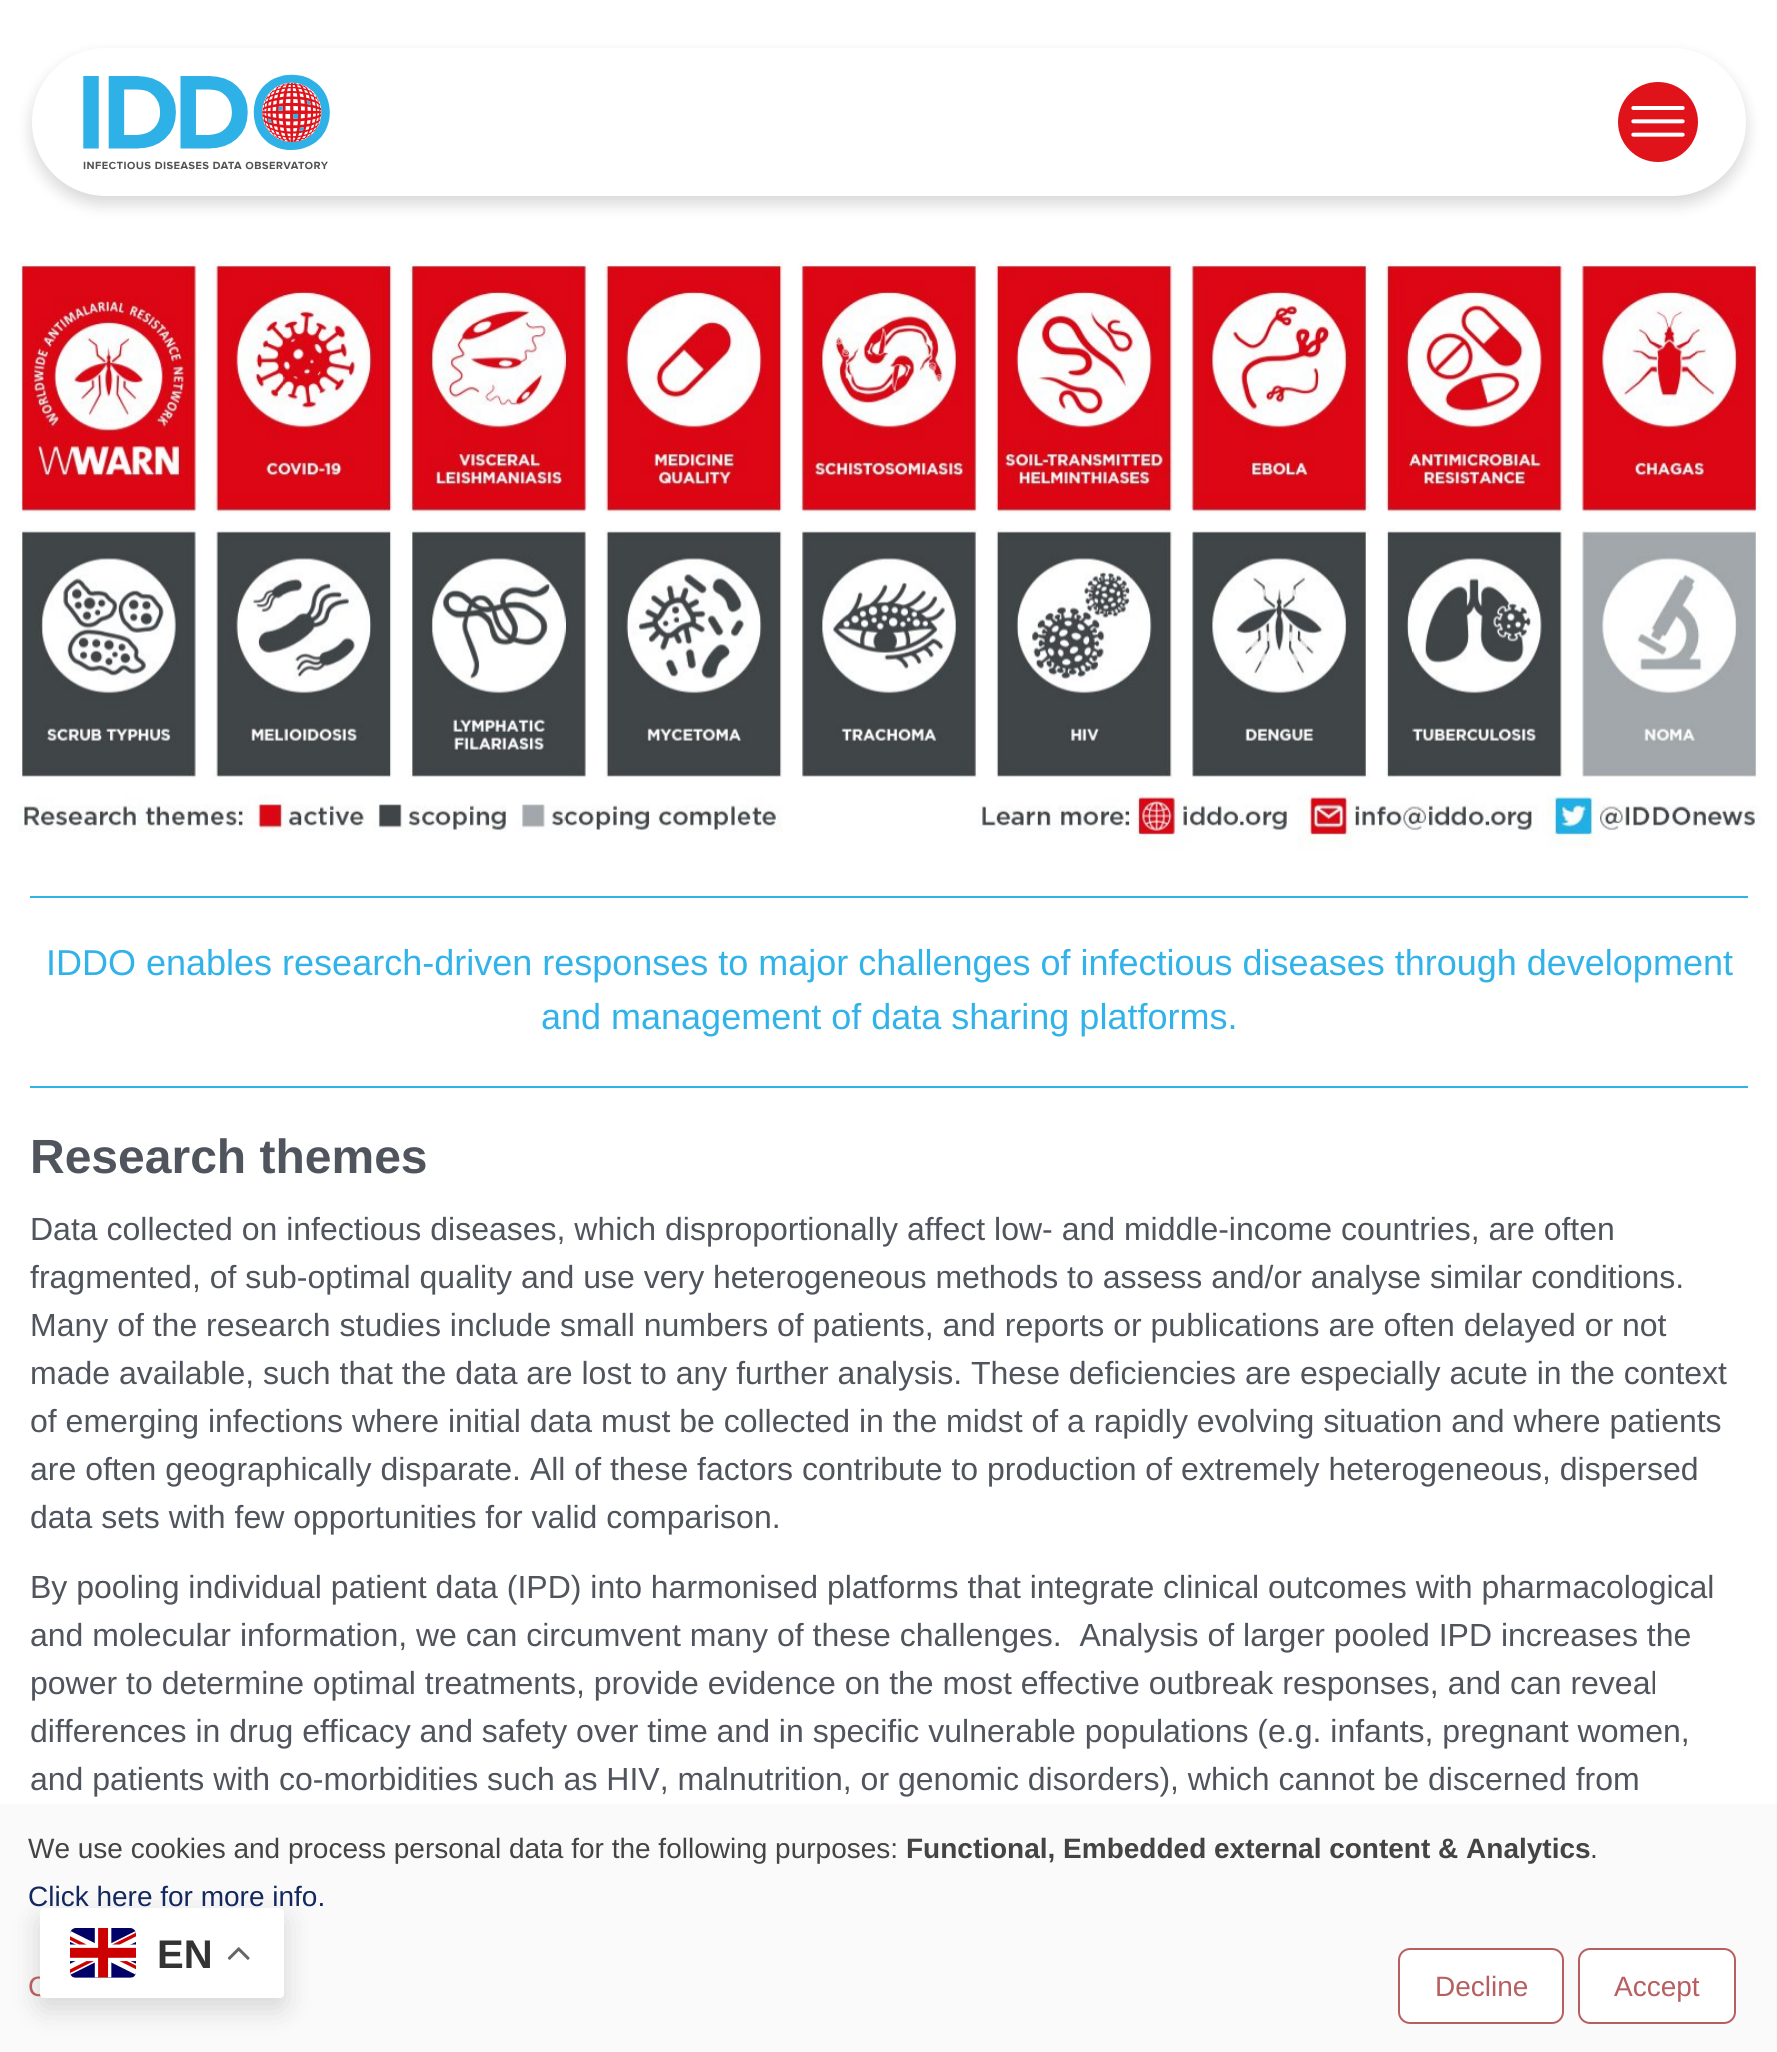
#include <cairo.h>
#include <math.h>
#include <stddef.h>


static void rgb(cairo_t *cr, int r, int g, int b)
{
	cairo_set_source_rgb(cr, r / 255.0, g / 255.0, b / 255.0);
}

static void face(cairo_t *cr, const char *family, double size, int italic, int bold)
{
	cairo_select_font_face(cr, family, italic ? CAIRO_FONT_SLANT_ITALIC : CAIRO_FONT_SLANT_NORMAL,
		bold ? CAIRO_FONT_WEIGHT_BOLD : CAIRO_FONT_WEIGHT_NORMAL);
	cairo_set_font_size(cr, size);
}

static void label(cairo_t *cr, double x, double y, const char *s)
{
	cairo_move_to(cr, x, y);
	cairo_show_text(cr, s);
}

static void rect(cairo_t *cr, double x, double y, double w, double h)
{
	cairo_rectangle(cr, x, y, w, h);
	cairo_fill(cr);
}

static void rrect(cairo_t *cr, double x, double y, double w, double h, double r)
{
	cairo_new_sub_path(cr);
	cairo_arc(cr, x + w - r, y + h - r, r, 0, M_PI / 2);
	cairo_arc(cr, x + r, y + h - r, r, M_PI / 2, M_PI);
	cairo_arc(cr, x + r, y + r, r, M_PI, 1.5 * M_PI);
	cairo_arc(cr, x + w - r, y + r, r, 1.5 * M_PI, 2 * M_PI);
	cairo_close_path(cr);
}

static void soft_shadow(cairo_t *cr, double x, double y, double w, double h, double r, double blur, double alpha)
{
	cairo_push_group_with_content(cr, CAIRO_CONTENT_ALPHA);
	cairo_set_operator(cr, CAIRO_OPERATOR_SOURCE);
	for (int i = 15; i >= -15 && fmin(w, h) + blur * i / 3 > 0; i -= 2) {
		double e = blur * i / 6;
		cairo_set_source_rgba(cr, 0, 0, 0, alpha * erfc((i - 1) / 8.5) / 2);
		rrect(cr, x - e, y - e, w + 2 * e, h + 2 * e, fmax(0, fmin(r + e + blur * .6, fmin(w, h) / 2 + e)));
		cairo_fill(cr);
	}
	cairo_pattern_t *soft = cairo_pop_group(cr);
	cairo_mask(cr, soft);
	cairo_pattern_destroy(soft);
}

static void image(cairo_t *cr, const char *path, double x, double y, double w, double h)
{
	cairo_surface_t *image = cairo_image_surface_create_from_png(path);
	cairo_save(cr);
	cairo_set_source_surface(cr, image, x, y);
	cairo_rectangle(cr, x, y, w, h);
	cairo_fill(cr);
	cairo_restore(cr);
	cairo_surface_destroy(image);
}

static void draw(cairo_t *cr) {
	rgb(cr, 255, 255, 255);
	cairo_paint(cr);
	rgb(cr, 0, 0, 0);
	soft_shadow(cr, 32, 56, 1714, 148, 74, 8, 0.16);
	rgb(cr, 255, 255, 255);
	rrect(cr, 32, 48, 1714, 148, 74);
	cairo_fill(cr);
	image(cr, "image0.png", 83, 74, 247, 96);
	rgb(cr, 224, 18, 26);
	cairo_arc(cr, 1658, 122, 40, 0, 2 * M_PI);
	cairo_fill(cr);
	image(cr, "image1.png", 1631, 106, 54, 31);
	image(cr, "image2.png", 0, 244, 1777, 612);
	rgb(cr, 49, 178, 232);
	rect(cr, 30, 896, 1718, 2);
	rect(cr, 30, 1086, 1718, 2);
	face(cr, "Liberation Sans", 36, 0, 0);
	label(cr, 46, 975, "IDDO enables research-driven responses to major challenges of infectious diseases through development");
	label(cr, 541, 1029, "and management of data sharing platforms.");
	face(cr, "Liberation Sans", 48, 0, 1);
	rgb(cr, 80, 84, 93);
	label(cr, 30, 1173, "Research themes");
	face(cr, "Liberation Sans", 32, 0, 0);
	label(cr, 30, 1240, "Data collected on infectious diseases, which disproportionally affect low- and middle-income countries, are often");
	label(cr, 30, 1288, "fragmented, of sub-optimal quality and use very heterogeneous methods to assess and/or analyse similar conditions.");
	label(cr, 30, 1336, "Many of the research studies include small numbers of patients, and reports or publications are often delayed or not");
	label(cr, 30, 1384, "made available, such that the data are lost to any further analysis. These deficiencies are especially acute in the context");
	label(cr, 30, 1432, "of emerging infections where initial data must be collected in the midst of a rapidly evolving situation and where patients");
	label(cr, 30, 1480, "are often geographically disparate. All of these factors contribute to production of extremely heterogeneous, dispersed");
	label(cr, 30, 1528, "data sets with few opportunities for valid comparison.");
	label(cr, 30, 1598, "By pooling individual patient data (IPD) into harmonised platforms that integrate clinical outcomes with pharmacological");
	label(cr, 30, 1646, "and molecular information, we can circumvent many of these challenges.  Analysis of larger pooled IPD increases the");
	label(cr, 30, 1694, "power to determine optimal treatments, provide evidence on the most effective outbreak responses, and can reveal");
	label(cr, 30, 1742, "differences in drug efficacy and safety over time and in specific vulnerable populations (e.g. infants, pregnant women,");
	label(cr, 30, 1790, "and patients with co-morbidities such as HIV, malnutrition, or genomic disorders), which cannot be discerned from");
	rgb(cr, 250, 250, 250);
	rect(cr, 0, 1804, 1777, 248);
	rgb(cr, 0, 0, 0);
	soft_shadow(cr, 40, 1918, 244, 90, 4, 15, 0.15);
	face(cr, "Liberation Sans", 28, 0, 0);
	rgb(cr, 183, 95, 96);
	label(cr, 28, 1996, "C");
	rgb(cr, 255, 255, 255);
	rrect(cr, 40, 1908, 244, 90, 4);
	cairo_fill(cr);
	image(cr, "image3.png", 70, 1928, 66, 50);
	face(cr, "Liberation Sans", 40, 0, 1);
	rgb(cr, 51, 51, 51);
	label(cr, 157, 1968, "EN");
	image(cr, "image4.png", 228, 1947, 22, 13);
	face(cr, "Liberation Sans", 28, 0, 0);
	rgb(cr, 68, 68, 68);
	label(cr, 28, 1858, "We use cookies and process personal data for the following purposes:");
	face(cr, "Liberation Sans", 28, 0, 1);
	label(cr, 906, 1858, "Functional, Embedded external content & Analytics");
	face(cr, "Liberation Sans", 28, 0, 0);
	label(cr, 1590, 1858, ".");
	rgb(cr, 18, 40, 95);
	label(cr, 28, 1906, "Click here for more info.");
	rgb(cr, 255, 255, 255);
	rrect(cr, 1399, 1949, 164, 74, 11);
	cairo_fill_preserve(cr);
	rgb(cr, 183, 95, 96);
	cairo_stroke(cr);
	label(cr, 1435, 1996, "Decline");
	rgb(cr, 255, 255, 255);
	rrect(cr, 1579, 1949, 156, 74, 11);
	cairo_fill_preserve(cr);
	rgb(cr, 183, 95, 96);
	cairo_stroke(cr);
	label(cr, 1614, 1996, "Accept");
}

int main(void) {
	cairo_surface_t *surface = cairo_image_surface_create(CAIRO_FORMAT_RGB24, 1777, 2052);
	cairo_t *cr = cairo_create(surface);
	cairo_font_options_t *options = cairo_font_options_create();
	cairo_font_options_set_hint_metrics(options, CAIRO_HINT_METRICS_OFF);
	cairo_font_options_set_hint_style(options, CAIRO_HINT_STYLE_NONE);
	cairo_set_font_options(cr, options);
	cairo_set_miter_limit(cr, 4);
	draw(cr);
	cairo_surface_write_to_png(surface, "render.png");
	cairo_font_options_destroy(options);
	cairo_destroy(cr);
	cairo_surface_destroy(surface);
	return 0;
}
